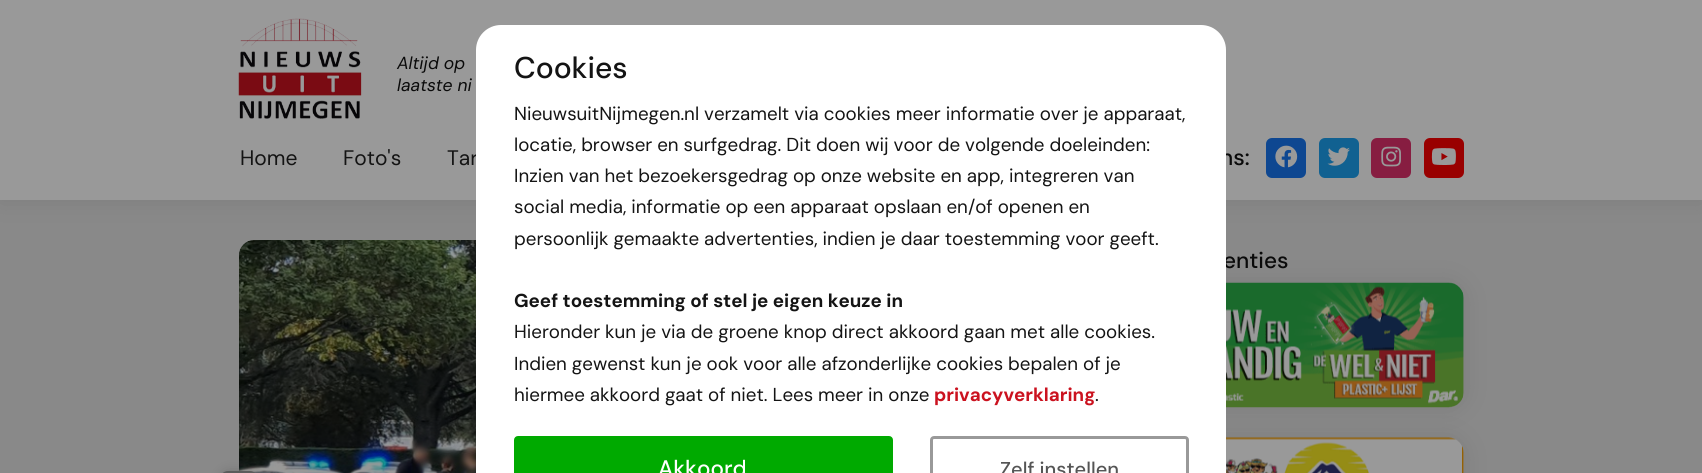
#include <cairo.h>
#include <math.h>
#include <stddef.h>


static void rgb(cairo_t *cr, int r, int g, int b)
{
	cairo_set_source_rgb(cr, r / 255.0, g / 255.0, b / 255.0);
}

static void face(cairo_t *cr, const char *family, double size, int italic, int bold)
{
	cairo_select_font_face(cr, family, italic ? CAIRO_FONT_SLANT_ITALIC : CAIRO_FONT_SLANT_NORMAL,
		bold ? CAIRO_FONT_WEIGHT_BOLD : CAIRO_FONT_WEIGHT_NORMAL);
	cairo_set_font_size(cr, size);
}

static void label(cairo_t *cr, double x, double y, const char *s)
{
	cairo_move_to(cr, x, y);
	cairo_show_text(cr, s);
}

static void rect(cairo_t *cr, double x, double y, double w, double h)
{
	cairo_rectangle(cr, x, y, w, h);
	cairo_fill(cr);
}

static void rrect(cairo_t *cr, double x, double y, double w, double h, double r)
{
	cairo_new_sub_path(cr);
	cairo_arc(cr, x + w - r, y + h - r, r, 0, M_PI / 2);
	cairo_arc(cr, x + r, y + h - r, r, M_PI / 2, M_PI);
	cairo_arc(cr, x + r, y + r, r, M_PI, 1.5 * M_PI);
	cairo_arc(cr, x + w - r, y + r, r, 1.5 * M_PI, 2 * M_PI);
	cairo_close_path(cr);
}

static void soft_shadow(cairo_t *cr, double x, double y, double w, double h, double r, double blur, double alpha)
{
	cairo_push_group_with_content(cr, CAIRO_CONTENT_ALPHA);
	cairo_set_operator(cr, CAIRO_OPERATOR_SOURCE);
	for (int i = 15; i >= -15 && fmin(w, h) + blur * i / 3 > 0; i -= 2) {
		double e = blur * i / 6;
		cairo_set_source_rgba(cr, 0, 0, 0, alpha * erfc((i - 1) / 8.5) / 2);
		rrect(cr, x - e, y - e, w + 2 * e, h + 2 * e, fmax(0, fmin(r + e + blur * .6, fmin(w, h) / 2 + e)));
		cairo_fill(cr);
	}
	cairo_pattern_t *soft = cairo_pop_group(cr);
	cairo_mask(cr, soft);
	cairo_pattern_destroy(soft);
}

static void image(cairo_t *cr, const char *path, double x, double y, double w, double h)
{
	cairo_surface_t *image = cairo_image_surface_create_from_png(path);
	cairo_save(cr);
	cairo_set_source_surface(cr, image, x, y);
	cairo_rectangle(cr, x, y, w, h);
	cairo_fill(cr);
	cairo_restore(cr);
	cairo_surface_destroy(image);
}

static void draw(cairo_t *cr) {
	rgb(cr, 137, 137, 137);
	cairo_paint(cr);
	rgb(cr, 0, 0, 0);
	soft_shadow(cr, 0, 0, 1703, 200, 0, 12.5, 0.1);
	rgb(cr, 153, 153, 153);
	rect(cr, 0, 0, 1702, 200);
	image(cr, "image0.png", 238, 18, 124, 101);
	face(cr, "DM Sans", 17.5, 1, 0);
	rgb(cr, 10, 10, 10);
	label(cr, 397, 69, "Altijd op");
	label(cr, 397, 91, "laatste ni");
	face(cr, "DM Sans", 21, 0, 0);
	rgb(cr, 20, 20, 20);
	label(cr, 240, 165, "Home");
	label(cr, 343, 165, "Foto's");
	label(cr, 447, 165, "Tar");
	face(cr, "DM Sans Medium", 22.5, 0, 0);
	rgb(cr, 10, 10, 10);
	label(cr, 1220, 165, "ns:");
	rgb(cr, 14, 71, 145);
	rrect(cr, 1266, 138, 40, 40, 6);
	cairo_fill(cr);
	image(cr, "image1.png", 1275, 145, 23, 23);
	rgb(cr, 17, 97, 145);
	rrect(cr, 1319, 138, 40, 40, 6);
	cairo_fill(cr);
	image(cr, "image2.png", 1327, 147, 23, 19);
	rgb(cr, 135, 29, 65);
	rrect(cr, 1371, 138, 40, 40, 6);
	cairo_fill(cr);
	image(cr, "image3.png", 1381, 146, 20, 21);
	rgb(cr, 153, 0, 0);
	rrect(cr, 1424, 138, 40, 40, 6);
	cairo_fill(cr);
	image(cr, "image4.png", 1431, 148, 25, 17);
	image(cr, "image5.png", 239, 240, 237, 233);
	rgb(cr, 0, 0, 0);
	soft_shadow(cr, 220, 471, 38, 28, 8, 6, 0.15);
	rgb(cr, 92, 92, 92);
	rrect(cr, 220, 471, 38, 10, 8);
	cairo_fill(cr);
	rgb(cr, 0, 0, 0);
	soft_shadow(cr, 1150, 283, 314, 125, 15, 12.5, 0.1);
	image(cr, "image6.png", 1226, 282, 238, 126);
	soft_shadow(cr, 1150, 438, 314, 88, 15, 12.5, 0.1);
	image(cr, "image7.png", 1226, 437, 238, 36);
	rgb(cr, 10, 10, 10);
	label(cr, 1223, 268, "enties");
	rgb(cr, 255, 255, 255);
	rrect(cr, 476, 25, 750, 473, 25);
	cairo_fill(cr);
	face(cr, "DM Sans Medium", 30, 0, 0);
	rgb(cr, 20, 20, 20);
	label(cr, 514, 78, "Cookies");
	face(cr, "DM Sans", 18.75, 0, 0);
	label(cr, 514, 120, "NieuwsuitNijmegen.nl verzamelt via cookies meer informatie over je apparaat,");
	label(cr, 514, 151, "locatie, browser en surfgedrag. Dit doen wij voor de volgende doeleinden:");
	label(cr, 514, 182, "Inzien van het bezoekersgedrag op onze website en app, integreren van");
	label(cr, 514, 213, "social media, informatie op een apparaat opslaan en/of openen en");
	label(cr, 514, 245, "persoonlijk gemaakte advertenties, indien je daar toestemming voor geeft.");
	face(cr, "DM Sans", 18.75, 0, 1);
	label(cr, 514, 307, "Geef toestemming of stel je eigen keuze in");
	face(cr, "DM Sans", 18.75, 0, 0);
	label(cr, 514, 338, "Hieronder kun je via de groene knop direct akkoord gaan met alle cookies.");
	label(cr, 514, 370, "Indien gewenst kun je ook voor alle afzonderlijke cookies bepalen of je");
	label(cr, 514, 401, "hiermee akkoord gaat of niet. Lees meer in onze");
	face(cr, "DM Sans", 18.75, 0, 1);
	rgb(cr, 203, 18, 31);
	label(cr, 934, 401, "privacyverklaring");
	face(cr, "DM Sans", 18.75, 0, 0);
	rgb(cr, 20, 20, 20);
	label(cr, 1095, 401, ".");
	rgb(cr, 0, 170, 0);
	rrect(cr, 515.5, 437.5, 376, 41, 2.5);
	cairo_fill_preserve(cr);
	cairo_set_line_width(cr, 3);
	cairo_stroke(cr);
	face(cr, "DM Sans Medium", 22.5, 0, 0);
	rgb(cr, 255, 255, 255);
	label(cr, 658, 476, "Akkoord");
	rrect(cr, 931.5, 437.5, 256, 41, 2.5);
	rgb(cr, 153, 153, 153);
	cairo_stroke(cr);
	face(cr, "DM Sans Medium", 20, 0, 0);
	rgb(cr, 85, 85, 85);
	label(cr, 1000, 476, "Zelf instellen");
}

int main(void) {
	cairo_surface_t *surface = cairo_image_surface_create(CAIRO_FORMAT_RGB24, 1702, 473);
	cairo_t *cr = cairo_create(surface);
	cairo_font_options_t *options = cairo_font_options_create();
	cairo_font_options_set_hint_metrics(options, CAIRO_HINT_METRICS_OFF);
	cairo_font_options_set_hint_style(options, CAIRO_HINT_STYLE_NONE);
	cairo_set_font_options(cr, options);
	cairo_set_miter_limit(cr, 4);
	draw(cr);
	cairo_surface_write_to_png(surface, "render.png");
	cairo_font_options_destroy(options);
	cairo_destroy(cr);
	cairo_surface_destroy(surface);
	return 0;
}
